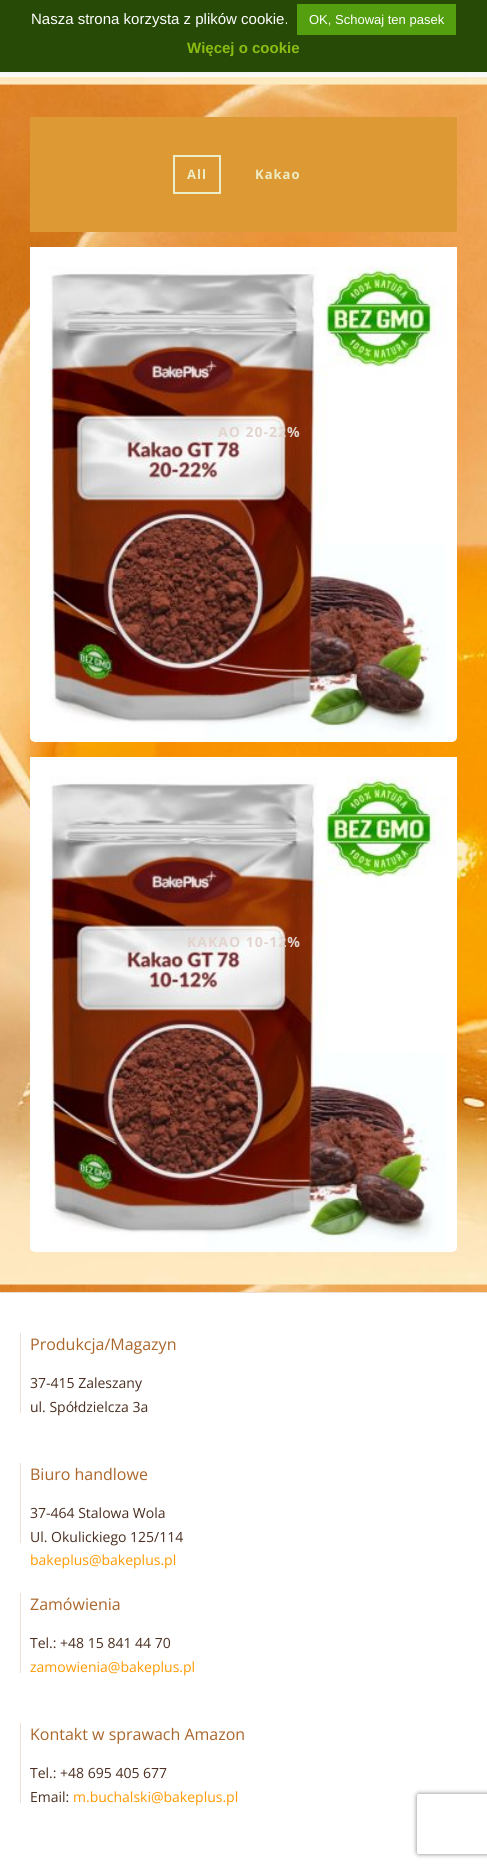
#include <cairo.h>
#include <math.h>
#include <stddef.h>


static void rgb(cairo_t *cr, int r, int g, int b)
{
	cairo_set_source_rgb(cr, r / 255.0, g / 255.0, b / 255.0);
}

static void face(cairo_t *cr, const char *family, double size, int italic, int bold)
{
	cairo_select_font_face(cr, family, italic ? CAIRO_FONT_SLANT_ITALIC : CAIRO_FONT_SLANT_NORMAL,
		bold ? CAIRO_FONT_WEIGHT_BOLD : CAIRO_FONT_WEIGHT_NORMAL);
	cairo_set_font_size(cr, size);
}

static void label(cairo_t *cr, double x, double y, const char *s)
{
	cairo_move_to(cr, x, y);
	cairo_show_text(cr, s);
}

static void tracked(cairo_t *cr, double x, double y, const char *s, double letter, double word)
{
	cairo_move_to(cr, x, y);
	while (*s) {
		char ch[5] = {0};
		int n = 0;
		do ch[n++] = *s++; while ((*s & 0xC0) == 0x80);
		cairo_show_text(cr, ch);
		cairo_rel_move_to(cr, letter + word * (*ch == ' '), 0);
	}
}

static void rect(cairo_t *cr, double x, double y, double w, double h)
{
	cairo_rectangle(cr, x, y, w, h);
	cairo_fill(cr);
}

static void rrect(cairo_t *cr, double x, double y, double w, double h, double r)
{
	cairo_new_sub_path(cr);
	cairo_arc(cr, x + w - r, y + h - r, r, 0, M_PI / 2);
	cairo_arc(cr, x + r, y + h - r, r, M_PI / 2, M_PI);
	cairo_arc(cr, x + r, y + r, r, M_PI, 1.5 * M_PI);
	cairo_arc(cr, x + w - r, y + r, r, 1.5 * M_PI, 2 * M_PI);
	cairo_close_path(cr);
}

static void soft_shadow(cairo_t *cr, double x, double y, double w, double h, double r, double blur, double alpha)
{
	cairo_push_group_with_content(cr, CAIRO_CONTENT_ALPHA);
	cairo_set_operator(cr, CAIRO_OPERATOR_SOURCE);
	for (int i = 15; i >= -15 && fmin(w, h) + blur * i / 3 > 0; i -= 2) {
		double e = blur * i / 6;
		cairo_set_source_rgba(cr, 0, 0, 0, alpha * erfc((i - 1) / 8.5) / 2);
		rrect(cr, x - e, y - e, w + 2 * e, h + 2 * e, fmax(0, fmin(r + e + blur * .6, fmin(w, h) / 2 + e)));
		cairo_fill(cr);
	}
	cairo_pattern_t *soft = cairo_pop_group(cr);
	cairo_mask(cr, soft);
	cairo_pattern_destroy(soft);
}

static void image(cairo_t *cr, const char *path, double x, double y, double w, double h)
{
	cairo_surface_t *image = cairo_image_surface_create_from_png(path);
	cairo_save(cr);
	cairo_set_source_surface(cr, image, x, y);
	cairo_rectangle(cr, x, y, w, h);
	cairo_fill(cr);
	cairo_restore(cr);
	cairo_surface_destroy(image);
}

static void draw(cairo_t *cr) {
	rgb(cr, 255, 255, 255);
	cairo_paint(cr);
	image(cr, "image0.png", 0, 77, 487, 1215);
	rgb(cr, 172, 171, 171);
	soft_shadow(cr, 0, -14, 487, 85, 0, 5, 0.3);
	rgb(cr, 39, 75, 7);
	rect(cr, 0, 0, 487, 72);
	face(cr, "Liberation Sans", 15, 0, 0);
	rgb(cr, 255, 255, 255);
	label(cr, 31, 24, "Nasza strona korzysta z plików cookie.");
	rgb(cr, 84, 159, 15);
	rect(cr, 297, 4, 159, 31);
	face(cr, "Liberation Sans", 13, 0, 0);
	rgb(cr, 255, 255, 255);
	label(cr, 309, 24, "OK, Schowaj ten pasek");
	face(cr, "Liberation Sans", 15, 0, 1);
	rgb(cr, 140, 188, 18);
	label(cr, 187, 53, "Więcej o cookie");
	rgb(cr, 221, 153, 51);
	rect(cr, 30, 117, 427, 115);
	cairo_rectangle(cr, 174, 156, 46, 37);
	rgb(cr, 237, 237, 199);
	cairo_stroke(cr);
	face(cr, "Open Sans", 13, 0, 1);
	tracked(cr, 187, 179, "All", 1, 0);
	tracked(cr, 255, 179, "Kakao", 1, 0);
	image(cr, "image1.png", 30, 247, 427, 495);
	face(cr, "Open Sans", 14, 0, 1);
	rgb(cr, 225, 212, 206);
	tracked(cr, 218, 437, "AO 20-22%", 1, 0);
	image(cr, "image2.png", 30, 757, 427, 495);
	tracked(cr, 187, 947, "KAKAO 10-12%", 1, 0);
	rgb(cr, 238, 224, 212);
	rect(cr, 0, 1292, 487, 1);
	rect(cr, 20, 1333, 1, 80);
	face(cr, "Open Sans", 16, 0, 0);
	rgb(cr, 170, 102, 43);
	label(cr, 30, 1350, "Produkcja/Magazyn");
	face(cr, "Open Sans", 14, 0, 0);
	rgb(cr, 74, 47, 33);
	label(cr, 30, 1388, "37-415 Zaleszany");
	label(cr, 30, 1412, "ul. Spółdzielcza 3a");
	rgb(cr, 238, 224, 212);
	rect(cr, 20, 1463, 1, 80);
	face(cr, "Open Sans", 16, 0, 0);
	rgb(cr, 170, 102, 43);
	label(cr, 30, 1480, "Biuro handlowe");
	face(cr, "Open Sans", 14, 0, 0);
	rgb(cr, 74, 47, 33);
	label(cr, 30, 1518, "37-464 Stalowa Wola");
	label(cr, 30, 1542, "Ul. Okulickiego 125/114");
	rgb(cr, 255, 153, 0);
	label(cr, 30, 1565, "bakeplus@bakeplus.pl");
	rgb(cr, 238, 224, 212);
	rect(cr, 20, 1593, 1, 80);
	face(cr, "Open Sans", 16, 0, 0);
	rgb(cr, 170, 102, 43);
	label(cr, 30, 1610, "Zamówienia");
	face(cr, "Open Sans", 14, 0, 0);
	rgb(cr, 74, 47, 33);
	label(cr, 30, 1648, "Tel.: +48 15 841 44 70");
	rgb(cr, 255, 153, 0);
	label(cr, 30, 1672, "zamowienia@bakeplus.pl");
	rgb(cr, 238, 224, 212);
	rect(cr, 20, 1723, 1, 80);
	face(cr, "Open Sans", 16, 0, 0);
	rgb(cr, 170, 102, 43);
	label(cr, 30, 1740, "Kontakt w sprawach Amazon");
	face(cr, "Open Sans", 14, 0, 0);
	rgb(cr, 74, 47, 33);
	label(cr, 30, 1778, "Tel.: +48 695 405 677");
	label(cr, 30, 1802, "Email:");
	rgb(cr, 255, 153, 0);
	label(cr, 73, 1802, "m.buchalski@bakeplus.pl");
	cairo_save(cr);
	cairo_set_fill_rule(cr, CAIRO_FILL_RULE_EVEN_ODD);
	cairo_new_path(cr);
	cairo_move_to(cr, 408, 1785);
	cairo_line_to(cr, 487, 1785);
	cairo_line_to(cr, 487, 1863);
	cairo_line_to(cr, 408, 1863);
	cairo_close_path(cr);
	cairo_move_to(cr, 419, 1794);
	cairo_line_to(cr, 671, 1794);
	cairo_curve_to(cr, 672, 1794, 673, 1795, 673, 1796);
	cairo_line_to(cr, 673, 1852);
	cairo_curve_to(cr, 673, 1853, 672, 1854, 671, 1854);
	cairo_line_to(cr, 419, 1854);
	cairo_curve_to(cr, 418, 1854, 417, 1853, 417, 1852);
	cairo_line_to(cr, 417, 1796);
	cairo_curve_to(cr, 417, 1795, 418, 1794, 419, 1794);
	cairo_close_path(cr);
	cairo_clip(cr);
	rgb(cr, 128, 128, 128);
	soft_shadow(cr, 417, 1794, 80, 60, 2, 2.5, 1);
	cairo_restore(cr);
}

int main(void) {
	cairo_surface_t *surface = cairo_image_surface_create(CAIRO_FORMAT_RGB24, 487, 1868);
	cairo_t *cr = cairo_create(surface);
	cairo_font_options_t *options = cairo_font_options_create();
	cairo_font_options_set_hint_metrics(options, CAIRO_HINT_METRICS_OFF);
	cairo_font_options_set_hint_style(options, CAIRO_HINT_STYLE_NONE);
	cairo_set_font_options(cr, options);
	cairo_set_miter_limit(cr, 4);
	draw(cr);
	cairo_surface_write_to_png(surface, "render.png");
	cairo_font_options_destroy(options);
	cairo_destroy(cr);
	cairo_surface_destroy(surface);
	return 0;
}
